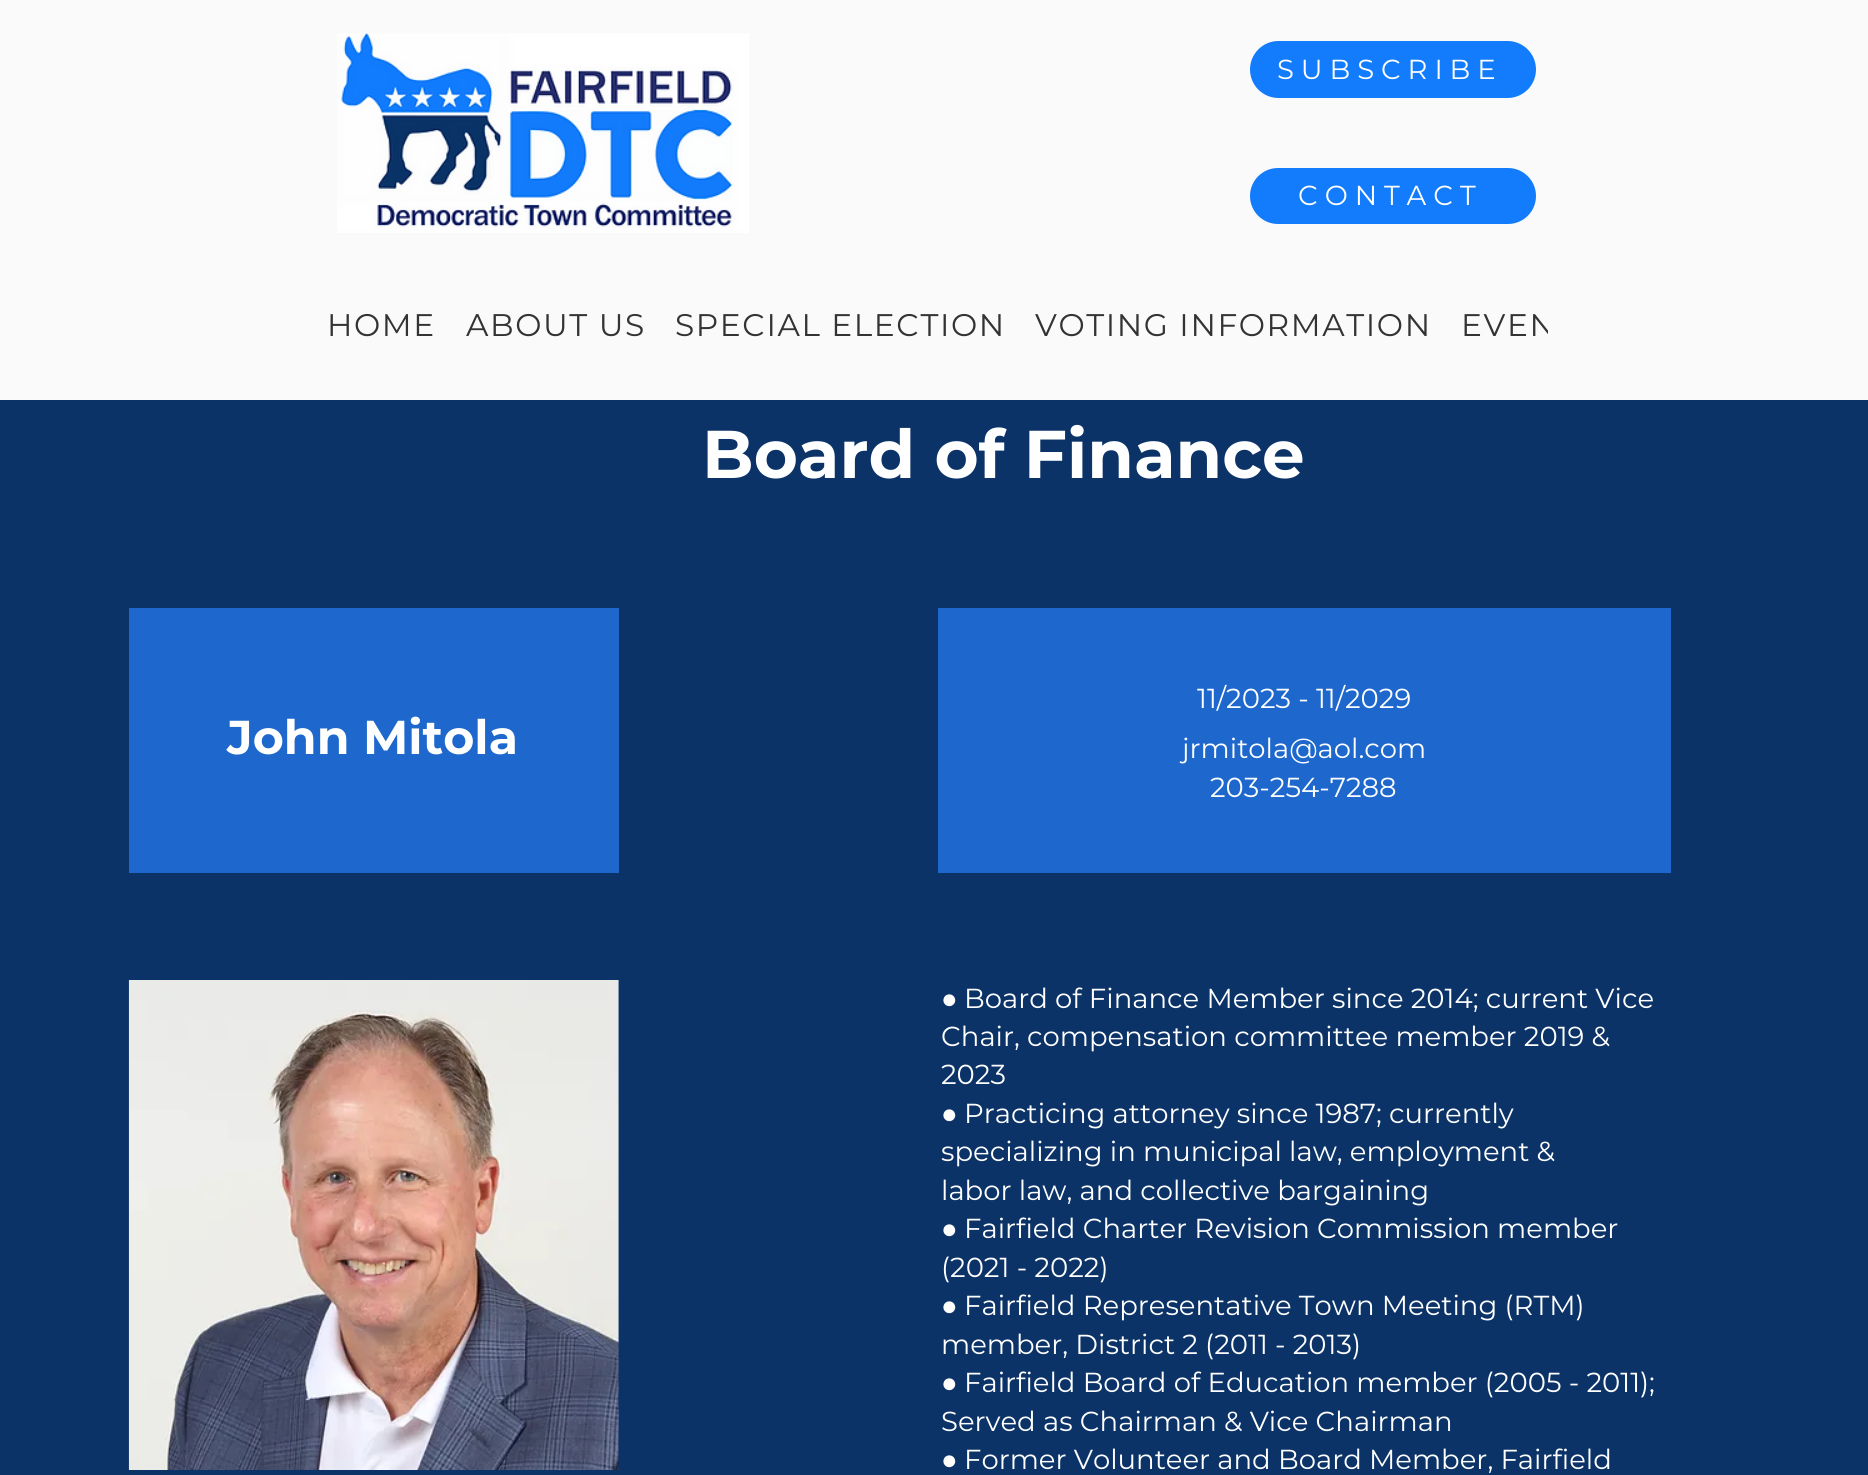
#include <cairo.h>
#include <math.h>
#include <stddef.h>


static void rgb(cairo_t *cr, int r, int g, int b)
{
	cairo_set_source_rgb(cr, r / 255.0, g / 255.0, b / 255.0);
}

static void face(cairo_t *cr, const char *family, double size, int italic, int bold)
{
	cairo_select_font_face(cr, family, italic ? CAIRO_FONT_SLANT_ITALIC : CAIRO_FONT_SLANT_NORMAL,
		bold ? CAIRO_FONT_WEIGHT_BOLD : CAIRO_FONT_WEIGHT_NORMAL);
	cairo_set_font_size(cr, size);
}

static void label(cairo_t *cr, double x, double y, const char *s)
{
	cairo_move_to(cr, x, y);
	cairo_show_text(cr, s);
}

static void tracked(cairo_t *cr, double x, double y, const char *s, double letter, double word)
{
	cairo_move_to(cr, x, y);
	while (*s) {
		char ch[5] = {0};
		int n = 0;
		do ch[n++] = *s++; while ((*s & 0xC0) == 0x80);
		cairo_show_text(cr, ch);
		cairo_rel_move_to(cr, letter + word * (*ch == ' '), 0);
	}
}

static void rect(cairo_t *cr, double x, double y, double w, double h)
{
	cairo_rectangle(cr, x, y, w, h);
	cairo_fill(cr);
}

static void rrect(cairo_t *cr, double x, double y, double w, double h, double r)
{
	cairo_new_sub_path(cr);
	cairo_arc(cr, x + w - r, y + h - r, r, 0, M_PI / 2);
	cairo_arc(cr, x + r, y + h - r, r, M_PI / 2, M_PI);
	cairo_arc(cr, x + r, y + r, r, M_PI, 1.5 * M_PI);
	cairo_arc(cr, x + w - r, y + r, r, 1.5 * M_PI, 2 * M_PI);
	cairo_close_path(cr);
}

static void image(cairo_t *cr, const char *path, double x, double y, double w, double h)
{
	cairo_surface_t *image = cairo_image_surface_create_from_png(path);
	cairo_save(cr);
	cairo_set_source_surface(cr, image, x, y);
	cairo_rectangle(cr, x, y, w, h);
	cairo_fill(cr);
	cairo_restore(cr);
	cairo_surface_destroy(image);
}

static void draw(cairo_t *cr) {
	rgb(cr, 12, 51, 104);
	cairo_paint(cr);
	rgb(cr, 250, 250, 250);
	rect(cr, 0, 0, 1868, 400);
	image(cr, "image0.png", 337, 33, 412, 200);
	rgb(cr, 18, 124, 253);
	rrect(cr, 1250, 41, 286, 57, 28.5);
	cairo_fill(cr);
	face(cr, "Montserrat", 27.5, 0, 0);
	rgb(cr, 254, 255, 254);
	tracked(cr, 1277, 79, "SUBSCRIBE", 6.9, 0);
	rgb(cr, 18, 124, 253);
	rrect(cr, 1250, 168, 286, 56, 28);
	cairo_fill(cr);
	rgb(cr, 254, 255, 254);
	tracked(cr, 1298, 205, "CONTACT", 6.9, 0);
	face(cr, "Montserrat", 31.25, 0, 0);
	rgb(cr, 51, 51, 51);
	tracked(cr, 327, 336, "HOME", 1.6, 0);
	tracked(cr, 466, 336, "ABOUT US", 1.6, 0);
	tracked(cr, 675, 336, "SPECIAL ELECTION", 1.6, 0);
	tracked(cr, 1035, 336, "VOTING INFORMATION", 1.6, 0);
	cairo_save(cr);
	cairo_rectangle(cr, 316, 271, 1232, 108);
	cairo_clip(cr);
	tracked(cr, 1461, 336, "EVEN", 1.6, 0);
	cairo_restore(cr);
	face(cr, "Montserrat", 67.5, 0, 1);
	rgb(cr, 254, 255, 254);
	label(cr, 702, 478, "Board of Finance");
	rgb(cr, 29, 103, 205);
	rect(cr, 129, 608, 490, 265);
	face(cr, "Montserrat", 47.5, 0, 1);
	rgb(cr, 254, 255, 254);
	label(cr, 227, 754, "John Mitola");
	image(cr, "image1.png", 128, 980, 491, 490);
	rgb(cr, 29, 103, 205);
	rect(cr, 938, 608, 733, 265);
	face(cr, "Montserrat", 27.5, 0, 0);
	rgb(cr, 254, 255, 254);
	label(cr, 1197, 708, "11/2023 - 11/2029");
	label(cr, 1182, 758, "jrmitola@aol.com");
	label(cr, 1210, 797, "203-254-7288");
	face(cr, "Liberation Sans", 27.5, 0, 0);
	label(cr, 941, 1008, "●");
	face(cr, "Montserrat", 27.5, 0, 0);
	label(cr, 964, 1008, "Board of Finance Member since 2014; current Vice");
	label(cr, 941, 1046, "Chair, compensation committee member 2019 &");
	label(cr, 941, 1084, "2023");
	face(cr, "Liberation Sans", 27.5, 0, 0);
	label(cr, 941, 1123, "●");
	face(cr, "Montserrat", 27.5, 0, 0);
	label(cr, 964, 1123, "Practicing attorney since 1987; currently");
	label(cr, 941, 1161, "specializing in municipal law, employment &");
	label(cr, 941, 1200, "labor law, and collective bargaining");
	face(cr, "Liberation Sans", 27.5, 0, 0);
	label(cr, 941, 1238, "●");
	face(cr, "Montserrat", 27.5, 0, 0);
	label(cr, 964, 1238, "Fairfield Charter Revision Commission member");
	label(cr, 941, 1277, "(2021 - 2022)");
	face(cr, "Liberation Sans", 27.5, 0, 0);
	label(cr, 941, 1315, "●");
	face(cr, "Montserrat", 27.5, 0, 0);
	label(cr, 964, 1315, "Fairfield Representative Town Meeting (RTM)");
	label(cr, 941, 1354, "member, District 2 (2011 - 2013)");
	face(cr, "Liberation Sans", 27.5, 0, 0);
	label(cr, 941, 1392, "●");
	face(cr, "Montserrat", 27.5, 0, 0);
	label(cr, 964, 1392, "Fairfield Board of Education member (2005 - 2011);");
	label(cr, 941, 1431, "Served as Chairman & Vice Chairman");
	face(cr, "Liberation Sans", 27.5, 0, 0);
	label(cr, 941, 1469, "●");
	face(cr, "Montserrat", 27.5, 0, 0);
	label(cr, 964, 1469, "Former Volunteer and Board Member, Fairfield");
}

int main(void) {
	cairo_surface_t *surface = cairo_image_surface_create(CAIRO_FORMAT_RGB24, 1868, 1475);
	cairo_t *cr = cairo_create(surface);
	cairo_font_options_t *options = cairo_font_options_create();
	cairo_font_options_set_hint_metrics(options, CAIRO_HINT_METRICS_OFF);
	cairo_font_options_set_hint_style(options, CAIRO_HINT_STYLE_NONE);
	cairo_set_font_options(cr, options);
	cairo_set_miter_limit(cr, 4);
	draw(cr);
	cairo_surface_write_to_png(surface, "render.png");
	cairo_font_options_destroy(options);
	cairo_destroy(cr);
	cairo_surface_destroy(surface);
	return 0;
}
